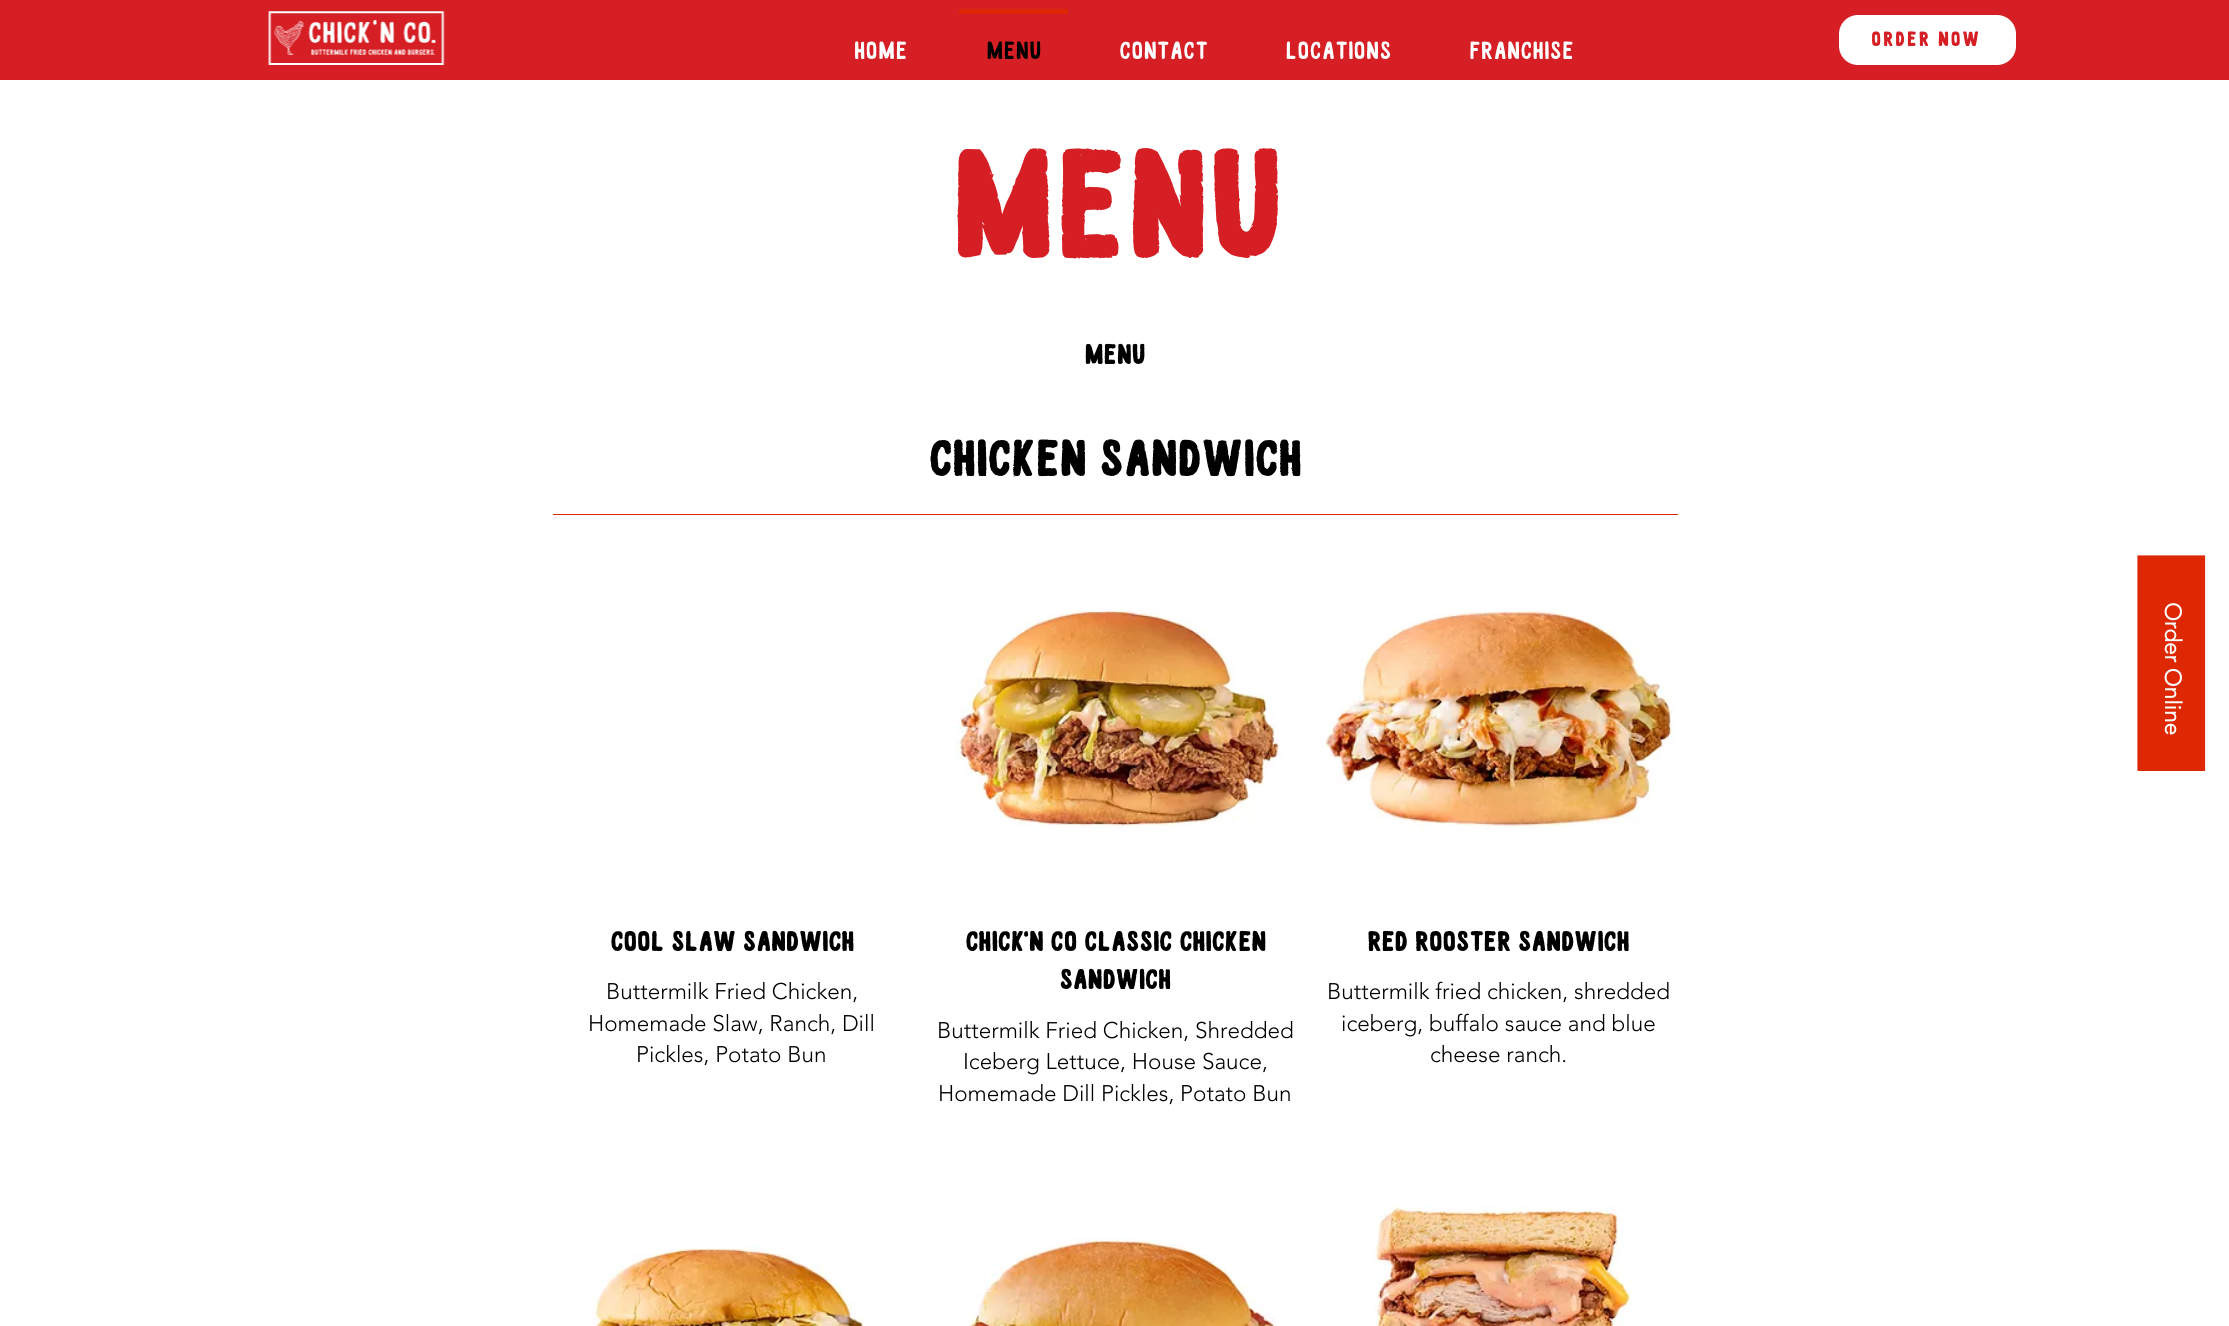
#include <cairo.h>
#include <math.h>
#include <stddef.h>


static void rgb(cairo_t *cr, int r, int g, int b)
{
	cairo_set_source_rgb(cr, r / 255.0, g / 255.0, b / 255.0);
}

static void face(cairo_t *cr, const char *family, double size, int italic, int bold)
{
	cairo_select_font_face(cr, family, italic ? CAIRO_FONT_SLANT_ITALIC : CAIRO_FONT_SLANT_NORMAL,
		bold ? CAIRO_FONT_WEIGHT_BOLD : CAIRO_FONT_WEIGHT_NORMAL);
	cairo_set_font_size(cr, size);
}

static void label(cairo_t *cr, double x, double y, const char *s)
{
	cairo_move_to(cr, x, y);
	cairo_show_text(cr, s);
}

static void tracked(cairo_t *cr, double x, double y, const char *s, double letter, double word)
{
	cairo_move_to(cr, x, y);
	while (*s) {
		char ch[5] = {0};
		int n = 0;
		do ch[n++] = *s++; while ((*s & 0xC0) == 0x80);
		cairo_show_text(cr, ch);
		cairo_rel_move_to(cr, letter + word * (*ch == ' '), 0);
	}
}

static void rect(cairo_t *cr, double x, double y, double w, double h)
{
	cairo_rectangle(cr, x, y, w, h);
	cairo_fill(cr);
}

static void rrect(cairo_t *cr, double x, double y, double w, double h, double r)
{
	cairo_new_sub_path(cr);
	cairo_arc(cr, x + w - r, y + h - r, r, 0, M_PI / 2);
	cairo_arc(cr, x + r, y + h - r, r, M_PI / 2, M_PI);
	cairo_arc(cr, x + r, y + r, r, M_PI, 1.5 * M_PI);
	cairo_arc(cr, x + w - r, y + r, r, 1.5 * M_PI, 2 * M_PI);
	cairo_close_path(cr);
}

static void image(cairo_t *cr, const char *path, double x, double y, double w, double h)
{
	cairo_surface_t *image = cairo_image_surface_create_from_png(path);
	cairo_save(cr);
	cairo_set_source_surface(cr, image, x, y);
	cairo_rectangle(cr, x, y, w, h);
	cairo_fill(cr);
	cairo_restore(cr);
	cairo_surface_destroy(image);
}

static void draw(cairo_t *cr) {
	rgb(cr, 255, 255, 255);
	cairo_paint(cr);
	rgb(cr, 213, 31, 37);
	rect(cr, 0, 0, 2229, 80);
	image(cr, "image0.png", 268, 11, 177, 54);
	rgb(cr, 255, 255, 255);
	rrect(cr, 1839, 15, 177, 50, 19);
	cairo_fill(cr);
	face(cr, "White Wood", 20, 0, 1);
	rgb(cr, 213, 31, 37);
	tracked(cr, 1871, 46, "Order Now", 2, 0);
	face(cr, "White Wood", 25, 0, 0);
	rgb(cr, 255, 255, 255);
	label(cr, 854, 59, "Home");
	rgb(cr, 221, 40, 3);
	rect(cr, 959, 9, 109, 5);
	rgb(cr, 0, 0, 0);
	label(cr, 986, 59, "Menu");
	rgb(cr, 255, 255, 255);
	label(cr, 1119, 59, "Contact");
	label(cr, 1285, 59, "Locations");
	label(cr, 1469, 59, "FRANCHISE");
	face(cr, "White Wood", 150, 0, 1);
	rgb(cr, 213, 31, 37);
	label(cr, 948, 258, "MENU");
	face(cr, "White Wood", 27.5, 0, 1);
	rgb(cr, 0, 0, 0);
	label(cr, 1084, 364, "Menu");
	face(cr, "White Wood", 50, 0, 1);
	label(cr, 928, 476, "CHICKEN SANDWICH");
	rgb(cr, 221, 40, 3);
	rect(cr, 553, 514, 1125, 1);
	face(cr, "White Wood", 27.5, 0, 1);
	rgb(cr, 0, 0, 0);
	label(cr, 610, 951, "Cool Slaw Sandwich");
	face(cr, "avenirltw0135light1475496 Light", 22.5, 0, 0);
	label(cr, 606, 999, "Buttermilk Fried Chicken,");
	label(cr, 588, 1031, "Homemade Slaw, Ranch, Dill");
	label(cr, 636, 1062, "Pickles, Potato Bun");
	image(cr, "image1.png", 956, 610, 329, 219);
	face(cr, "White Wood", 27.5, 0, 1);
	label(cr, 965, 951, "Chick'n Co Classic Chicken");
	label(cr, 1059, 989, "Sandwich");
	face(cr, "avenirltw0135light1475496 Light", 22.5, 0, 0);
	label(cr, 937, 1038, "Buttermilk Fried Chicken, Shredded");
	label(cr, 963, 1069, "Iceberg Lettuce, House Sauce,");
	label(cr, 938, 1101, "Homemade Dill Pickles, Potato Bun");
	image(cr, "image2.png", 1319, 610, 357, 220);
	face(cr, "White Wood", 27.5, 0, 1);
	label(cr, 1367, 951, "Red Rooster Sandwich");
	face(cr, "avenirltw0135light1475496 Light", 22.5, 0, 0);
	label(cr, 1327, 999, "Buttermilk fried chicken, shredded");
	label(cr, 1341, 1031, "iceberg, buffalo sauce and blue");
	label(cr, 1430, 1062, "cheese ranch.");
	image(cr, "image3.png", 593, 1245, 271, 81);
	image(cr, "image4.png", 969, 1235, 308, 91);
	image(cr, "image5.png", 1374, 1205, 257, 121);
	rgb(cr, 221, 40, 3);
	rect(cr, 2138, 556, 67, 215);
	cairo_new_path(cr);
	cairo_move_to(cr, 2204.5, 556);
	cairo_line_to(cr, 2204.5, 770);
	cairo_line_to(cr, 2138, 770);
	cairo_line_to(cr, 2138, 556);
	cairo_close_path(cr);
	cairo_set_line_width(cr, 1.2);
	cairo_stroke(cr);
	face(cr, "avenirltw0135light1475496", 22.5, 0, 1);
	rgb(cr, 255, 255, 255);
	cairo_save(cr);
	cairo_translate(cr, 2165, 602);
	cairo_rotate(cr, 90 * M_PI / 180);
	label(cr, 0, 0, "Order Online");
	cairo_restore(cr);
}

int main(void) {
	cairo_surface_t *surface = cairo_image_surface_create(CAIRO_FORMAT_RGB24, 2229, 1326);
	cairo_t *cr = cairo_create(surface);
	cairo_font_options_t *options = cairo_font_options_create();
	cairo_font_options_set_hint_metrics(options, CAIRO_HINT_METRICS_OFF);
	cairo_font_options_set_hint_style(options, CAIRO_HINT_STYLE_NONE);
	cairo_set_font_options(cr, options);
	cairo_set_miter_limit(cr, 4);
	draw(cr);
	cairo_surface_write_to_png(surface, "render.png");
	cairo_font_options_destroy(options);
	cairo_destroy(cr);
	cairo_surface_destroy(surface);
	return 0;
}
